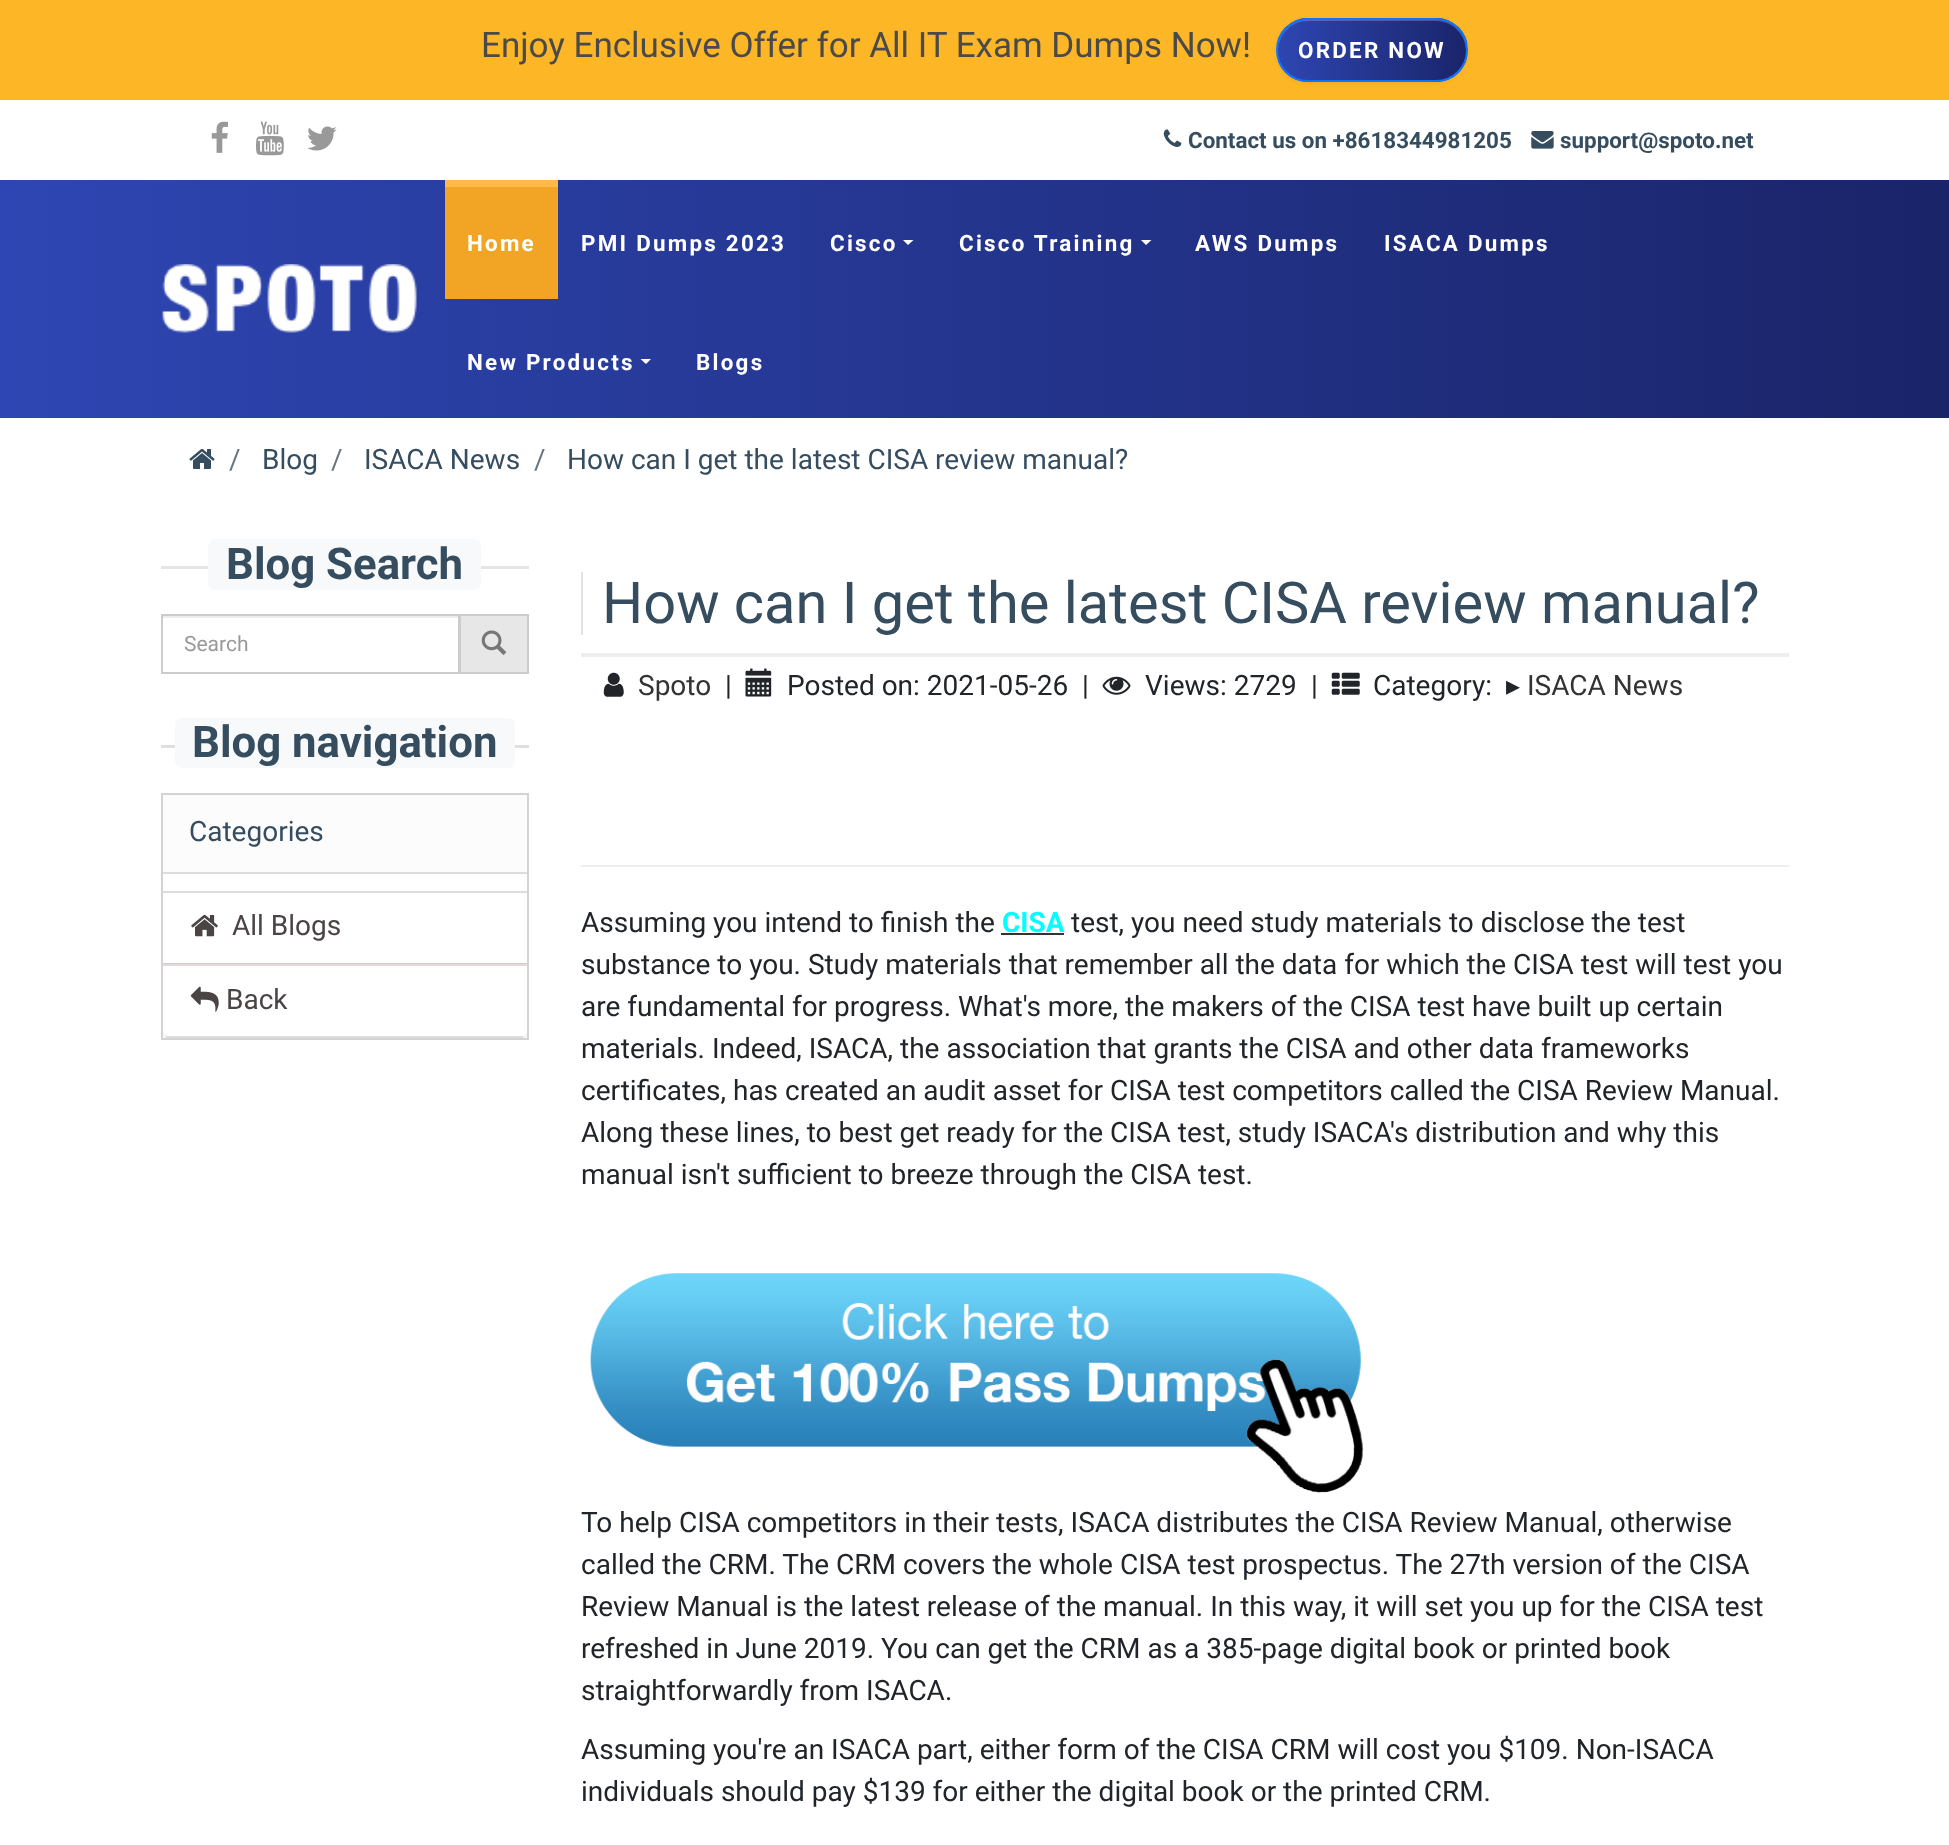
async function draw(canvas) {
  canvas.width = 1949;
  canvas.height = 1845;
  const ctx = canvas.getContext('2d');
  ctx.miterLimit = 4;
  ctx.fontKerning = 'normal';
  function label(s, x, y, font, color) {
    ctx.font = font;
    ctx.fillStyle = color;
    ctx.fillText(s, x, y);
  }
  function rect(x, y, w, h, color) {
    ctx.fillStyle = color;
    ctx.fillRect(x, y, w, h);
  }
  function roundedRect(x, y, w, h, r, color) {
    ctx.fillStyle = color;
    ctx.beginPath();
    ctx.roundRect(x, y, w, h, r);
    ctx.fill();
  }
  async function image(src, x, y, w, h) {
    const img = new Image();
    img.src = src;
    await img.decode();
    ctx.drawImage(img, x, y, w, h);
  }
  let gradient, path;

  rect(0, 0, 1949, 1845, '#fff');
  rect(0, 0, 1949, 100, '#fdb726');
  label('Enjoy Enclusive Offer for All IT Exam Dumps Now!', 481, 57, '35px Roboto', '#4a4a4a');
  ctx.fillStyle = '#0000000d';
  ctx.filter = 'blur(2px)';
  ctx.beginPath();
  ctx.roundRect(1276, 19, 192, 65, 32.5);
  ctx.fill();
  ctx.filter = 'none';
  ctx.save();
  ctx.beginPath();
  ctx.roundRect(1276, 18, 192, 64, 32);
  ctx.clip();
  gradient = ctx.createLinearGradient(1278, 50, 1467, 50);
  gradient.addColorStop(0, '#2e46b3');
  gradient.addColorStop(1, '#1a2469');
  ctx.fillStyle = gradient;
  ctx.fillRect(1278, 18, 189, 64);
  ctx.restore();
  ctx.fillStyle = '#ffffff33';
  path = new Path2D('M1308 21H1436C1453 21 1466 35 1466 52C1466 56 1465 61 1464 64C1466 60 1467 55 1467 50C1467 33 1453 19 1436 19H1309C1292 19 1278 33 1278 50V51C1279 34 1291 21 1308 21Z');
  ctx.fill(path);
  ctx.beginPath();
  ctx.roundRect(1277, 19, 190, 62, 31);
  ctx.strokeStyle = '#0c74ff';
  ctx.lineWidth = 2;
  ctx.stroke();
  ctx.letterSpacing = '2.25px';
  label('ORDER NOW', 1298, 58, 'bold 22.4px Roboto', '#fff');
  await image('assets/img1.png', 211, 121, 17, 32);
  await image('assets/img2.png', 256, 121, 28, 35);
  await image('assets/img3.png', 307, 126, 30, 25);
  await image('assets/img4.png', 1163, 129, 19, 18);
  ctx.letterSpacing = '0px';
  label('Contact us on +8618344981205', 1188, 148, 'bold 22.4px Roboto', '#354d5f');
  await image('assets/img5.png', 1531, 131, 23, 18);
  label('support@spoto.net', 1560, 148, 'bold 22.4px Roboto', '#354d5f');
  gradient = ctx.createLinearGradient(0, 299, 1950, 299);
  gradient.addColorStop(0, '#2e46b3');
  gradient.addColorStop(1, '#1a2469');
  ctx.fillStyle = gradient;
  ctx.fillRect(0, 180, 1949, 238);
  await image('assets/img6.png', 162, 264, 255, 69);
  rect(445, 187, 113, 112, '#f2a525');
  rect(445, 180, 113, 7, '#ffb84a');
  ctx.letterSpacing = '2.25px';
  label('Home', 467, 251, 'bold 22.4px Roboto', '#fff');
  label('PMI Dumps 2023', 581, 251, 'bold 22.4px Roboto', '#fff');
  label('Cisco', 830, 251, 'bold 22.4px Roboto', '#fff');
  path = new Path2D('M903 240H913.5L908 245Z');
  ctx.fill(path);
  label('Cisco Training', 959, 251, 'bold 22.4px Roboto', '#fff');
  path = new Path2D('M1141 240H1151.5L1146 245Z');
  ctx.fill(path);
  label('AWS Dumps', 1195, 251, 'bold 22.4px Roboto', '#fff');
  label('ISACA Dumps', 1384, 251, 'bold 22.4px Roboto', '#fff');
  label('New Products', 467, 370, 'bold 22.4px Roboto', '#fff');
  path = new Path2D('M640.5 359H651L646 364Z');
  ctx.fill(path);
  label('Blogs', 696, 370, 'bold 22.4px Roboto', '#fff');
  await image('assets/img7.png', 189, 449, 26, 20);
  ctx.letterSpacing = '0px';
  label('/', 229, 469, '28px Roboto', '#6c757d');
  label('Blog', 262, 469, '28px Roboto', '#354d5f');
  label('/', 331, 469, '28px Roboto', '#6c757d');
  label('ISACA News', 364, 469, '28px Roboto', '#354d5f');
  label('/', 534, 469, '28px Roboto', '#6c757d');
  label('How can I get the latest CISA review manual?', 567, 469, '28px Roboto', '#354d5f');
  rect(161, 566, 368, 3, '#e5e5e5');
  roundedRect(208, 539, 273, 51, 7, '#f8f9fa');
  label('Blog Search', 226, 579, 'bold 43.75px Roboto', '#354d5f');
  rect(163, 616, 296, 2, '#ececec');
  ctx.strokeStyle = '#ccc';
  ctx.strokeRect(162, 615, 297, 58);
  label('Search', 184, 651, '21px Roboto', '#999');
  ctx.fillStyle = '#e7e7e7';
  ctx.beginPath();
  ctx.rect(460, 615, 68, 58);
  ctx.fill();
  ctx.stroke();
  await image('assets/img8.png', 481, 630, 26, 25);
  rect(161, 745, 368, 3, '#dfdfdf');
  roundedRect(175, 718, 340, 50, 7, '#f8f9fa');
  label('Blog navigation', 192, 757, 'bold 43.75px Roboto', '#354d5f');
  ctx.strokeStyle = '#d3d3d3';
  ctx.strokeRect(162, 794, 366, 245);
  rect(163, 795, 364, 77, '#fcfcfc');
  rect(163, 872, 364, 2, '#ddd');
  label('Categories', 189, 841, '28px Roboto', '#354d5f');
  ctx.save();
  ctx.beginPath();
  ctx.rect(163, 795, 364, 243);
  ctx.clip();
  ctx.fillStyle = '#00000012';
  ctx.filter = 'blur(2px)';
  ctx.beginPath();
  ctx.roundRect(163, 893, 364, 147, 7);
  ctx.fill();
  ctx.filter = 'none';
  ctx.restore();
  rect(163, 893, 364, 70, '#fff');
  rect(163, 891, 364, 2, '#ddd');
  rect(163, 963, 364, 1, '#e0c5c5');
  await image('assets/img9.png', 191, 915, 27, 22);
  label('All Blogs', 232, 935, '28px Roboto', '#4b4444');
  ctx.fillStyle = '#fff';
  path = new Path2D('M163 966H527V1031C527 1034 524 1036 520 1036H170C166 1036 163 1034 163 1031Z');
  ctx.fill(path);
  rect(163, 964, 364, 2, '#ddd');
  rect(166, 1036, 357, 2, '#ddd');
  await image('assets/img10.png', 190, 986, 29, 26);
  label('Back', 226, 1009, '28px Roboto', '#4b4444');
  rect(581, 572, 2, 63, '#e7e1e1');
  label('How can I get the latest CISA review manual?', 602, 623, '57.75px Roboto', '#354d5f');
  rect(581, 653, 1208, 4, '#eee');
  await image('assets/img11.png', 603, 672, 21, 25);
  label('Spoto', 638, 695, '28px Roboto', '#333');
  label('|', 725, 695, '28px Roboto', '#212529');
  await image('assets/img12.png', 745, 668, 27, 29);
  label('Posted on: 2021-05-26', 787, 695, '28px Roboto', '#212529');
  label('|', 1082, 695, '28px Roboto', '#212529');
  await image('assets/img13.png', 1102, 676, 29, 19);
  label('Views: 2729', 1145, 695, '28px Roboto', '#212529');
  label('|', 1311, 695, '28px Roboto', '#212529');
  await image('assets/img14.png', 1331, 672, 29, 23);
  label('Category:', 1373, 695, '28px Roboto', '#212529');
  label('▸', 1506, 695, '28px DejaVu Sans', '#212529');
  label('ISACA News', 1527, 695, '28px Roboto', '#333');
  rect(581, 865, 1208, 2, '#eee');
  label('Assuming you intend to finish the', 581, 932, '28px Roboto', '#212529');
  label('CISA', 1002, 932, 'bold 28px Roboto', '#0ff');
  rect(1001, 933, 63, 2, '#333');
  label('test, you need study materials to disclose the test', 1071, 932, '28px Roboto', '#212529');
  label('substance to you. Study materials that remember all the data for which the CISA test will test you', 581, 974, '28px Roboto', '#212529');
  label('are fundamental for progress. What\'s more, the makers of the CISA test have built up certain', 581, 1016, '28px Roboto', '#212529');
  label('materials. Indeed, ISACA, the association that grants the CISA and other data frameworks', 581, 1058, '28px Roboto', '#212529');
  label('certificates, has created an audit asset for CISA test competitors called the CISA Review Manual.', 581, 1100, '28px Roboto', '#212529');
  label('Along these lines, to best get ready for the CISA test, study ISACA\'s distribution and why this', 581, 1142, '28px Roboto', '#212529');
  label('manual isn\'t sufficient to breeze through the CISA test.', 581, 1184, '28px Roboto', '#212529');
  await image('assets/img15.png', 590, 1273, 774, 220);
  label('To help CISA competitors in their tests, ISACA distributes the CISA Review Manual, otherwise', 581, 1532, '28px Roboto', '#212529');
  label('called the CRM. The CRM covers the whole CISA test prospectus. The 27th version of the CISA', 581, 1574, '28px Roboto', '#212529');
  label('Review Manual is the latest release of the manual. In this way, it will set you up for the CISA test', 581, 1616, '28px Roboto', '#212529');
  label('refreshed in June 2019. You can get the CRM as a 385-page digital book or printed book', 581, 1658, '28px Roboto', '#212529');
  label('straightforwardly from ISACA.', 581, 1700, '28px Roboto', '#212529');
  label('Assuming you\'re an ISACA part, either form of the CISA CRM will cost you $109. Non-ISACA', 581, 1759, '28px Roboto', '#212529');
  label('individuals should pay $139 for either the digital book or the printed CRM.', 581, 1801, '28px Roboto', '#212529');
}

draw(document.querySelector('canvas'));
